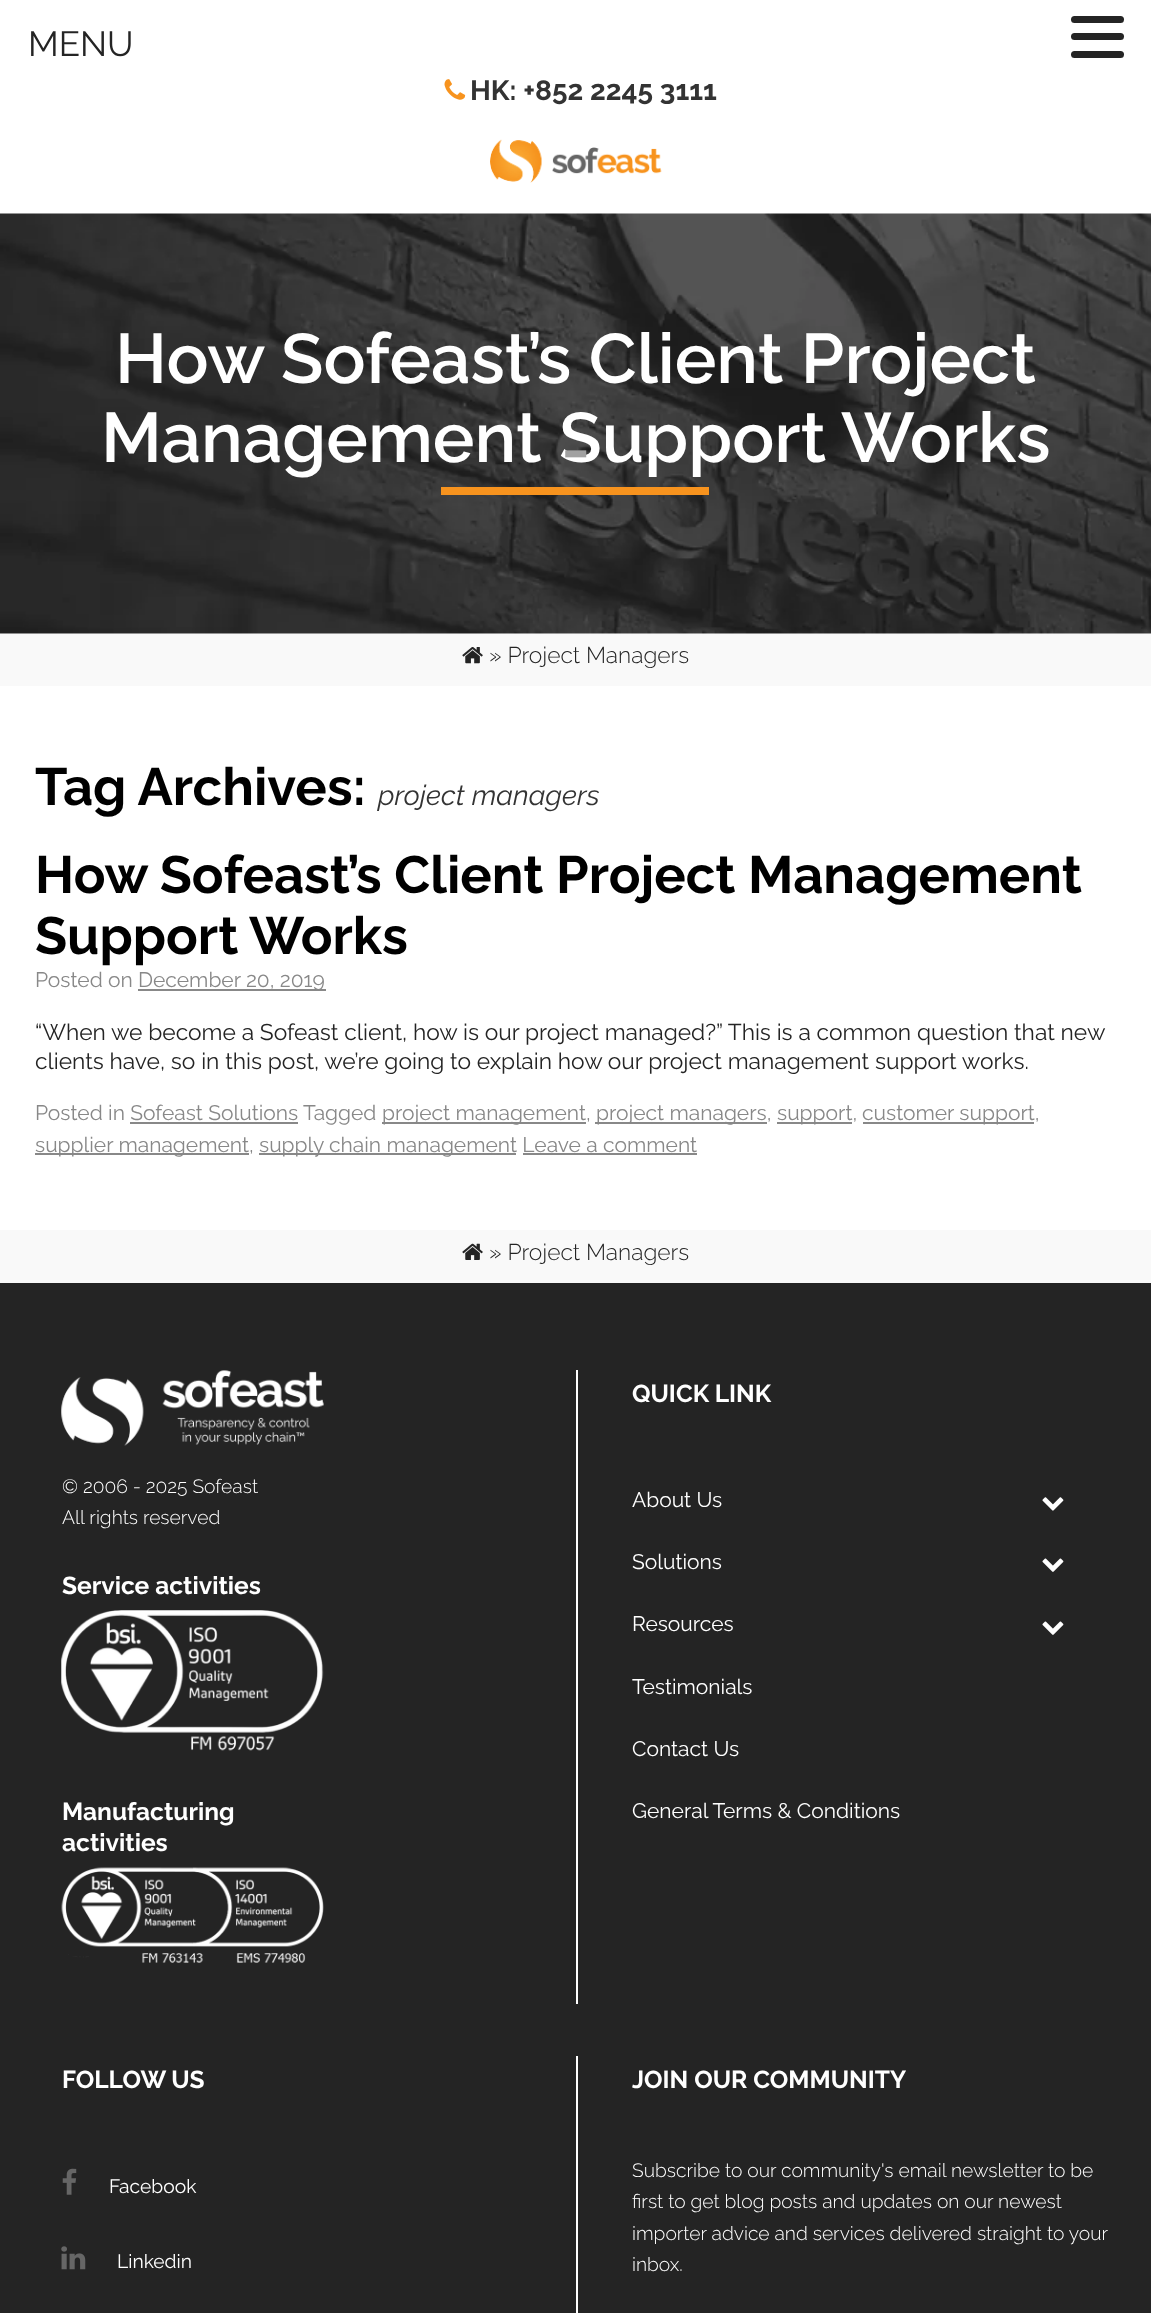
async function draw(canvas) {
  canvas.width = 1151;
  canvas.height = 2313;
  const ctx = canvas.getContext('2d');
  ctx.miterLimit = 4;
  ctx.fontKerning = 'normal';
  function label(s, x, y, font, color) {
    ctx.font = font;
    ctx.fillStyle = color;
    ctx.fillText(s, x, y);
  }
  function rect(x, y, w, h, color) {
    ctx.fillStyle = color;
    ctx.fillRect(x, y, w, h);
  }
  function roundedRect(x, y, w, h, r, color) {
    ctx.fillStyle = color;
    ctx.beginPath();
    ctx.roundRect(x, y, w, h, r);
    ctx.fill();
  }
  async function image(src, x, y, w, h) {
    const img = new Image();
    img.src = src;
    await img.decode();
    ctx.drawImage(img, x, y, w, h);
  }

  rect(0, 0, 1151, 2313, '#fff');
  label('MENU', 28, 56, '35px Raleway', '#242424');
  roundedRect(1071, 16, 53, 7, 3.5, '#242424');
  roundedRect(1071, 33, 53, 7, 3.5, '#242424');
  roundedRect(1071, 51, 53, 7, 3.5, '#242424');
  await image('assets/img1.png', 444, 79, 22, 21);
  label('HK: +852 2245 3111', 470, 100, 'bold 28px Raleway', '#333');
  await image('assets/img2.png', 490, 139, 172, 44);
  await image('assets/img3.png', 0, 213, 1151, 421);
  label('How Sofeast’s Client Project', 115, 383, '600 70px Raleway', '#fff');
  label('Management Support Works', 101, 462, '600 70px Raleway', '#fff');
  rect(441, 487, 268, 8, '#f7931e');
  label('-', 561, 473, '600 70px Raleway', '#a1a1a1');
  rect(0, 634, 1151, 52, '#f9f9f9');
  await image('assets/img4.png', 462, 647, 21, 17);
  label('» Project Managers', 489, 663, '300 22.75px Raleway', '#242424');
  label('Tag Archives:', 35, 805, 'bold 52.5px Raleway', '#000');
  label('project managers', 378, 805, 'italic 28px Raleway', '#333');
  label('How Sofeast’s Client Project Management', 35, 893, 'bold 52.5px Raleway', '#000');
  label('Support Works', 35, 954, 'bold 52.5px Raleway', '#000');
  label('Posted on', 35, 987, '21px Raleway', '#888');
  rect(138, 989, 188, 2, '#888');
  label('December 20, 2019', 138, 987, '21px Raleway', '#888');
  label('“When we become a Sofeast client, how is our project managed?” This is a common question that new', 35, 1040, '22.75px Raleway', '#242424');
  label('clients have, so in this post, we’re going to explain how our project management support works.', 35, 1069, '22.75px Raleway', '#242424');
  label('Posted in Sofeast Solutions', 35, 1120, '21px Raleway', '#888');
  rect(130, 1122, 168, 2, '#888');
  label('Tagged', 303, 1120, '21px Raleway', '#888');
  rect(382, 1122, 204, 2, '#888');
  label('project management,', 382, 1120, '21px Raleway', '#888');
  rect(595, 1122, 172, 2, '#888');
  label('project managers,', 596, 1120, '21px Raleway', '#888');
  rect(777, 1122, 75, 2, '#888');
  label('support,', 777, 1120, '21px Raleway', '#888');
  rect(863, 1122, 171, 2, '#888');
  label('customer support,', 862, 1120, '21px Raleway', '#888');
  rect(35, 1153, 214, 2, '#888');
  label('supplier management,', 35, 1152, '21px Raleway', '#888');
  rect(259, 1153, 257, 2, '#888');
  label('supply chain management Leave a comment', 259, 1152, '21px Raleway', '#888');
  rect(523, 1153, 174, 2, '#888');
  rect(0, 1230, 1151, 53, '#f9f9f9');
  await image('assets/img5.png', 462, 1243, 21, 17);
  label('» Project Managers', 489, 1260, '300 22.75px Raleway', '#242424');
  rect(0, 1283, 1151, 1030, '#242424');
  rect(576, 1370, 2, 634, '#fff');
  await image('assets/img6.png', 61, 1370, 263, 76);
  label('© 2006 - 2025 Sofeast', 62, 1493, '300 19.25px Raleway', '#fff');
  label('All rights reserved', 62, 1524, '300 19.25px Raleway', '#fff');
  label('Service activities', 62, 1594, 'bold 24.5px Raleway', '#fff');
  await image('assets/img7.png', 61, 1610, 263, 141);
  label('Manufacturing', 62, 1820, 'bold 24.5px Raleway', '#fff');
  label('activities', 62, 1851, 'bold 24.5px Raleway', '#fff');
  await image('assets/img8.png', 61, 1867, 263, 96);
  label('QUICK LINK', 632, 1402, 'bold 24.5px Raleway', '#fff');
  label('About Us', 632, 1507, '21px Raleway', '#fff');
  await image('assets/img9.png', 1042, 1497, 22, 14);
  label('Solutions', 632, 1569, '21px Raleway', '#fff');
  await image('assets/img10.png', 1042, 1558, 22, 14);
  label('Resources', 632, 1631, '21px Raleway', '#fff');
  await image('assets/img10.png', 1042, 1621, 22, 14);
  label('Testimonials', 632, 1694, '21px Raleway', '#fff');
  label('Contact Us', 632, 1756, '21px Raleway', '#fff');
  label('General Terms & Conditions', 632, 1818, '21px Raleway', '#fff');
  rect(576, 2056, 2, 257, '#fff');
  label('FOLLOW US', 62, 2088, 'bold 24.5px Raleway', '#fff');
  await image('assets/img11.png', 62, 2168, 15, 27);
  label('Facebook', 109, 2193, '19.25px Raleway', '#fff');
  await image('assets/img12.png', 61, 2246, 25, 24);
  label('Linkedin', 117, 2268, '19.25px Raleway', '#fff');
  label('JOIN OUR COMMUNITY', 632, 2088, 'bold 24.5px Raleway', '#fff');
  label('Subscribe to our community\'s email newsletter to be', 632, 2177, '300 19.25px Raleway', '#fff');
  label('first to get blog posts and updates on our newest', 632, 2208, '300 19.25px Raleway', '#fff');
  label('importer advice and services delivered straight to your', 632, 2240, '300 19.25px Raleway', '#fff');
  label('inbox.', 632, 2271, '300 19.25px Raleway', '#fff');
}

draw(document.querySelector('canvas'));
